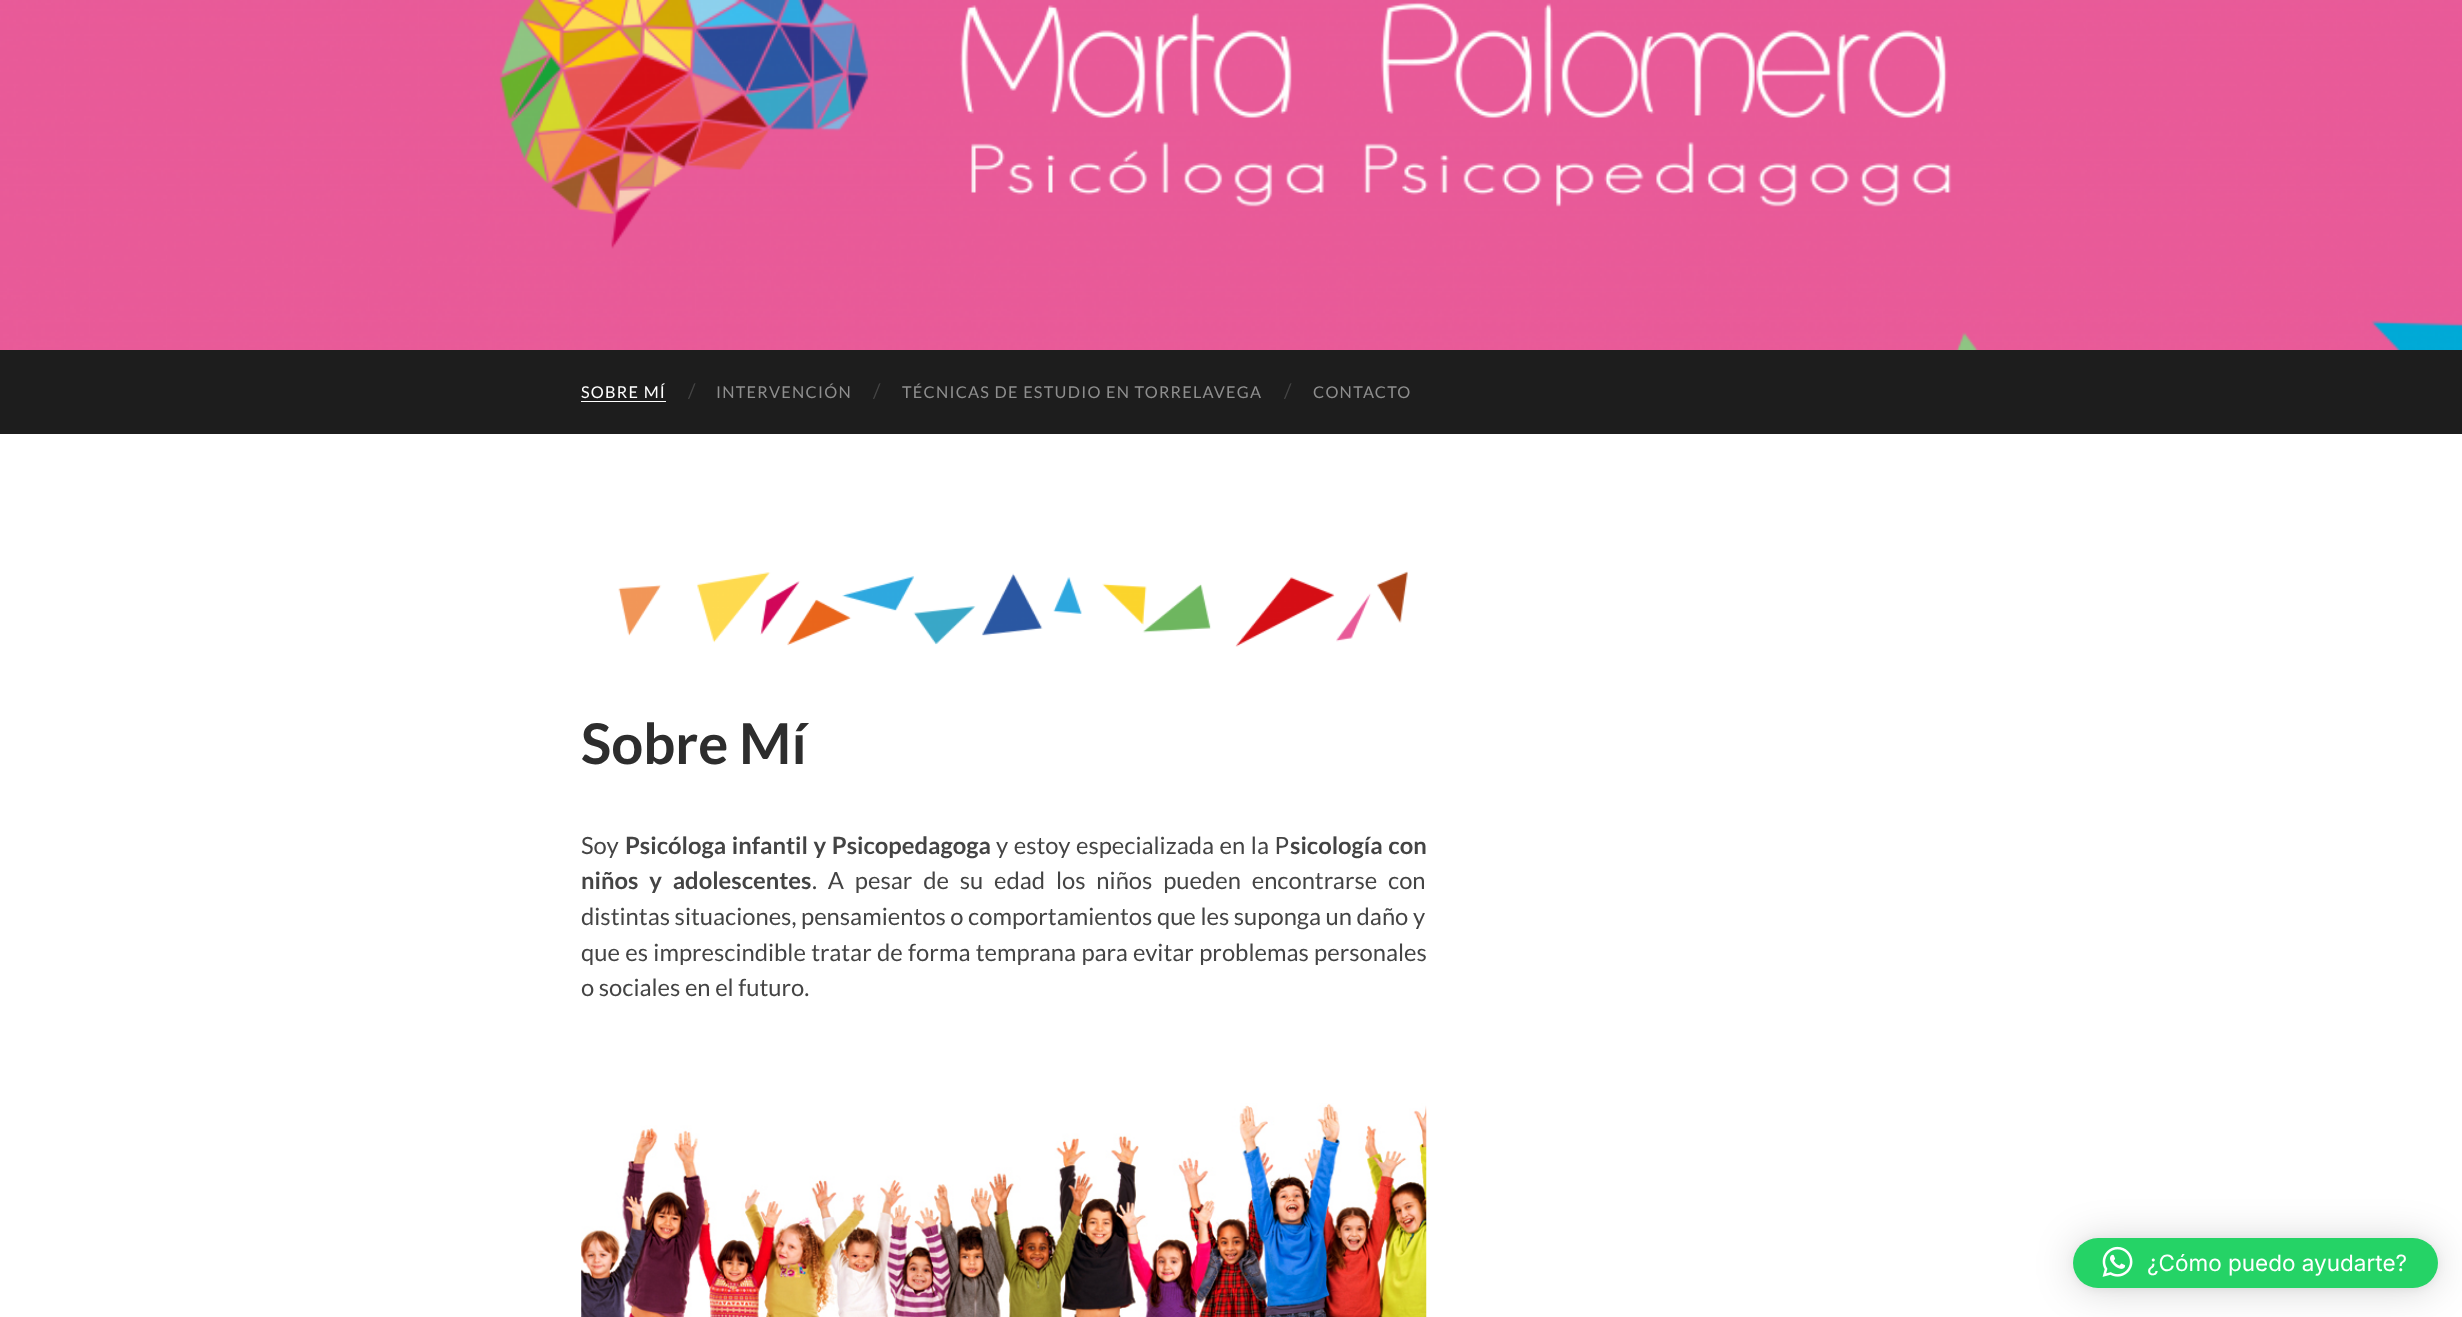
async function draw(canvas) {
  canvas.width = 2462;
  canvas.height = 1317;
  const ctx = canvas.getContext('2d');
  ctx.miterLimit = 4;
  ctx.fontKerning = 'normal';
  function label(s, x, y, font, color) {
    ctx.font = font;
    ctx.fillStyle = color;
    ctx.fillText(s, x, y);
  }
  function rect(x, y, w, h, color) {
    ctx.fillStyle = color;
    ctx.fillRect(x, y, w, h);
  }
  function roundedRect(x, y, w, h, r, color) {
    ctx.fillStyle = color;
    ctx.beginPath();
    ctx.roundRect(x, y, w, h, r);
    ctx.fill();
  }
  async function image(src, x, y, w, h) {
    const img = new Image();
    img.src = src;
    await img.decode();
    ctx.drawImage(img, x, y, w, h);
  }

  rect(0, 0, 2462, 1317, '#fff');
  await image('assets/img1.png', 0, 0, 2462, 350);
  rect(0, 350, 2462, 84, '#1d1d1d');
  ctx.letterSpacing = '1.25px';
  label('SOBRE MÍ', 581, 398, '16.25px Lato', '#fff');
  rect(581, 401, 85, 1, '#fff');
  ctx.letterSpacing = '0px';
  label('/', 688, 398, '20px Lato', '#444');
  ctx.letterSpacing = '1.25px';
  label('INTERVENCIÓN', 716, 398, '16.25px Lato', '#8e8e8e');
  ctx.letterSpacing = '0px';
  label('/', 873, 398, '20px Lato', '#444');
  ctx.letterSpacing = '1.25px';
  label('TÉCNICAS DE ESTUDIO EN TORRELAVEGA', 902, 398, '16.25px Lato', '#8e8e8e');
  ctx.letterSpacing = '0px';
  label('/', 1284, 398, '20px Lato', '#444');
  ctx.letterSpacing = '1.25px';
  label('CONTACTO', 1313, 398, '16.25px Lato', '#8e8e8e');
  await image('assets/img2.png', 618, 571, 790, 76);
  ctx.letterSpacing = '0px';
  label('Sobre Mí', 581, 764, 'bold 56.25px Lato', '#2d2d2d');
  label('Soy', 581, 854, '23.75px Lato', '#444');
  ctx.wordSpacing = '1px';
  label('Psicóloga infantil y Psicopedagoga', 625, 854, 'bold 23.75px Lato', '#444');
  label('y estoy especializada en la P', 996, 854, '23.75px Lato', '#444');
  label('sicología con', 1290, 854, 'bold 23.75px Lato', '#444');
  ctx.wordSpacing = '6.25px';
  label('niños y adolescentes', 581, 889, 'bold 23.75px Lato', '#444');
  label('. A pesar de su edad los niños pueden encontrarse con', 812, 889, '23.75px Lato', '#444');
  ctx.wordSpacing = '0px';
  label('distintas situaciones, pensamientos o comportamientos que les suponga un daño y', 581, 925, '23.75px Lato', '#444');
  ctx.wordSpacing = '0.75px';
  label('que es imprescindible tratar de forma temprana para evitar problemas personales', 581, 961, '23.75px Lato', '#444');
  ctx.wordSpacing = '0px';
  label('o sociales en el futuro.', 581, 996, '23.75px Lato', '#444');
  await image('assets/img3.png', 581, 1103, 846, 214);
  ctx.fillStyle = '#00000029';
  ctx.filter = 'blur(20px)';
  ctx.beginPath();
  ctx.roundRect(2073, 1240, 365, 50, 25);
  ctx.fill();
  ctx.filter = 'none';
  ctx.fillStyle = '#0000000f';
  ctx.filter = 'blur(4px)';
  ctx.beginPath();
  ctx.roundRect(2073, 1239, 365, 50, 25);
  ctx.fill();
  ctx.filter = 'none';
  roundedRect(2073, 1238, 365, 50, 25, '#25d366');
  await image('assets/img4.png', 2102, 1246, 31, 31);
  label('¿Cómo puedo ayudarte?', 2147, 1271, '22.5px Inter', '#fff');
}

draw(document.querySelector('canvas'));
